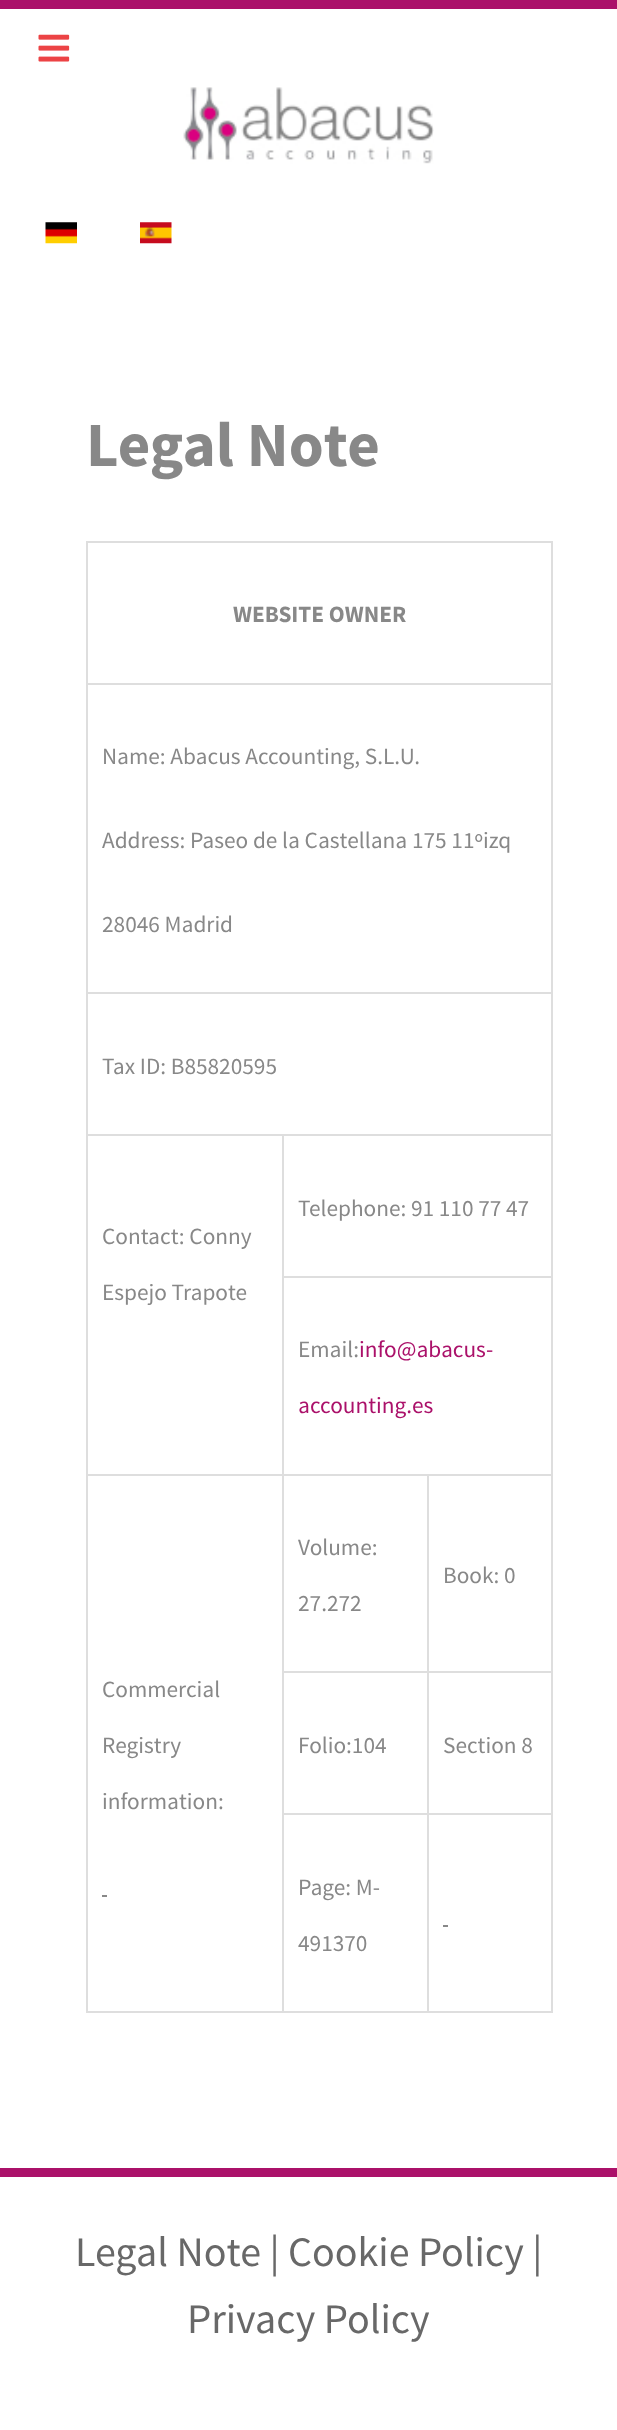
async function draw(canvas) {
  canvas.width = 617;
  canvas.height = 2430;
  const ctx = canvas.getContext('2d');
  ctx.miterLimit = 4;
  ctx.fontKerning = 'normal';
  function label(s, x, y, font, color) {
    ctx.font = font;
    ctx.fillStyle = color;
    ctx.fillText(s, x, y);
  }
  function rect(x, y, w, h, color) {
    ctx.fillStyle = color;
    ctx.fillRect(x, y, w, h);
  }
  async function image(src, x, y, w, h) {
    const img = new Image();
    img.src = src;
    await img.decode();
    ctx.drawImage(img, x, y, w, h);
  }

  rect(0, 0, 617, 2430, '#fff');
  rect(0, 0, 617, 9, '#ab116a');
  await image('assets/img1.png', 183, 87, 251, 77);
  await image('assets/img2.png', 45, 222, 32, 22);
  await image('assets/img3.png', 140, 222, 32, 22);
  await image('assets/img4.png', 38, 34, 32, 28);
  label('Legal Note', 86, 466, 'bold 63px Source Sans Pro', '#888');
  rect(86, 541, 467, 2, '#dedede');
  rect(551, 541, 2, 1472, '#dedede');
  rect(86, 2011, 467, 2, '#dedede');
  rect(86, 541, 2, 1472, '#dedede');
  label('WEBSITE OWNER', 233, 622, 'bold 23.3px Source Sans Pro', '#888');
  rect(86, 683, 467, 2, '#dedede');
  label('Name: Abacus Accounting, S.L.U.', 102, 764, '23.3px Source Sans Pro', '#888');
  label('Address: Paseo de la Castellana 175 11ºizq', 102, 848, '23.3px Source Sans Pro', '#888');
  label('28046 Madrid', 102, 932, '23.3px Source Sans Pro', '#888');
  rect(86, 992, 467, 2, '#dedede');
  label('Tax ID: B85820595', 102, 1074, '23.3px Source Sans Pro', '#888');
  rect(282, 1134, 271, 2, '#dedede');
  rect(282, 1276, 271, 2, '#dedede');
  rect(427, 1474, 126, 2, '#dedede');
  rect(427, 1671, 126, 2, '#dedede');
  rect(427, 1813, 126, 2, '#dedede');
  rect(427, 1813, 2, 200, '#dedede');
  rect(282, 1813, 147, 2, '#dedede');
  rect(427, 1671, 2, 144, '#dedede');
  rect(282, 1671, 147, 2, '#dedede');
  rect(427, 1474, 2, 199, '#dedede');
  rect(282, 1474, 147, 2, '#dedede');
  rect(282, 1813, 2, 200, '#dedede');
  rect(282, 1671, 2, 144, '#dedede');
  rect(282, 1474, 2, 199, '#dedede');
  rect(86, 1474, 198, 2, '#dedede');
  rect(282, 1276, 2, 199, '#dedede');
  rect(282, 1134, 2, 144, '#dedede');
  label('Telephone: 91 110 77 47', 298, 1216, '23.3px Source Sans Pro', '#888');
  rect(86, 1134, 198, 2, '#dedede');
  label('Contact: Conny', 102, 1244, '23.3px Source Sans Pro', '#888');
  label('Espejo Trapote', 102, 1300, '23.3px Source Sans Pro', '#888');
  label('Email:', 298, 1357, '23.3px Source Sans Pro', '#888');
  label('info@abacus-', 359, 1357, '23.3px Source Sans Pro', '#ab116a');
  label('accounting.es', 298, 1413, '23.3px Source Sans Pro', '#ab116a');
  label('Volume:', 298, 1555, '23.3px Source Sans Pro', '#888');
  label('27.272', 298, 1611, '23.3px Source Sans Pro', '#888');
  label('Book: 0', 443, 1583, '23.3px Source Sans Pro', '#888');
  label('Commercial', 102, 1697, '23.3px Source Sans Pro', '#888');
  label('Registry', 102, 1753, '23.3px Source Sans Pro', '#888');
  label('information:', 102, 1809, '23.3px Source Sans Pro', '#888');
  rect(102, 1895, 5, 2, '#888');
  label('Folio:104', 298, 1753, '23.3px Source Sans Pro', '#888');
  label('Section 8', 443, 1753, '23.3px Source Sans Pro', '#888');
  label('Page: M-', 298, 1895, '23.3px Source Sans Pro', '#888');
  label('491370', 298, 1951, '23.3px Source Sans Pro', '#888');
  rect(443, 1925, 5, 2, '#888');
  rect(0, 2168, 617, 9, '#ab116a');
  label('Legal Note | Cookie Policy |', 75, 2266, '42px Source Sans Pro', '#686868');
  label('Privacy Policy', 187, 2333, '42px Source Sans Pro', '#686868');
}

draw(document.querySelector('canvas'));
